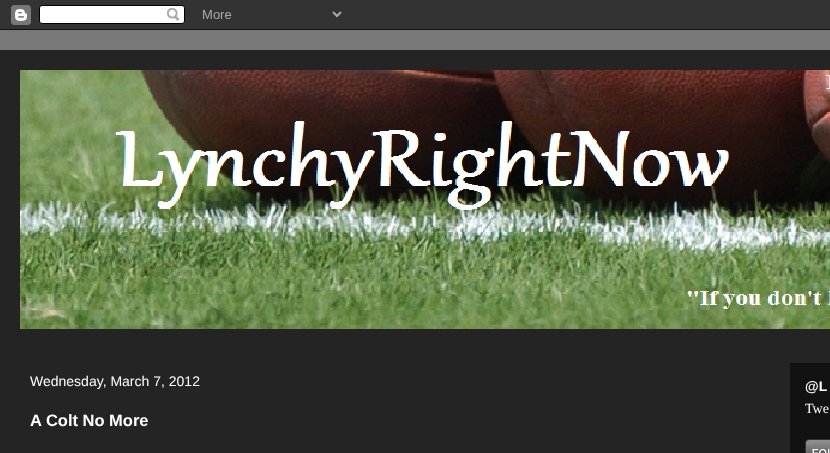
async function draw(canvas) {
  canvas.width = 830;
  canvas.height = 453;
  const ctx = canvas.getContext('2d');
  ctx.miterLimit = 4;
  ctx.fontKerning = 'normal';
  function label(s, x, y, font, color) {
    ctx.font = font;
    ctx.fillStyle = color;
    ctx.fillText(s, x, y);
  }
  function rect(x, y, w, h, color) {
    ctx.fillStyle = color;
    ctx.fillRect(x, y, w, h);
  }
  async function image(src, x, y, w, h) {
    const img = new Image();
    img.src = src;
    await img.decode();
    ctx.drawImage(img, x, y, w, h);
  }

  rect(0, 0, 830, 453, '#787878');
  await image('assets/img1.png', 0, 0, 830, 30);
  rect(0, 50, 830, 403, '#242424');
  await image('assets/img2.png', 20, 70, 810, 259);
  rect(790, 363, 40, 90, '#121212');
  label('Wednesday, March 7, 2012', 30, 386, '14px Liberation Sans', '#fff');
  label('A Colt No More', 30, 426, 'bold 16.5px Liberation Sans', '#fff');
  label('@L', 805, 391, 'bold 14px Liberation Sans', '#fff');
  label('Twe', 805, 413, '14px Liberation Serif', '#fff');
  await image('assets/img3.png', 805, 439, 25, 14);
}

draw(document.querySelector('canvas'));
